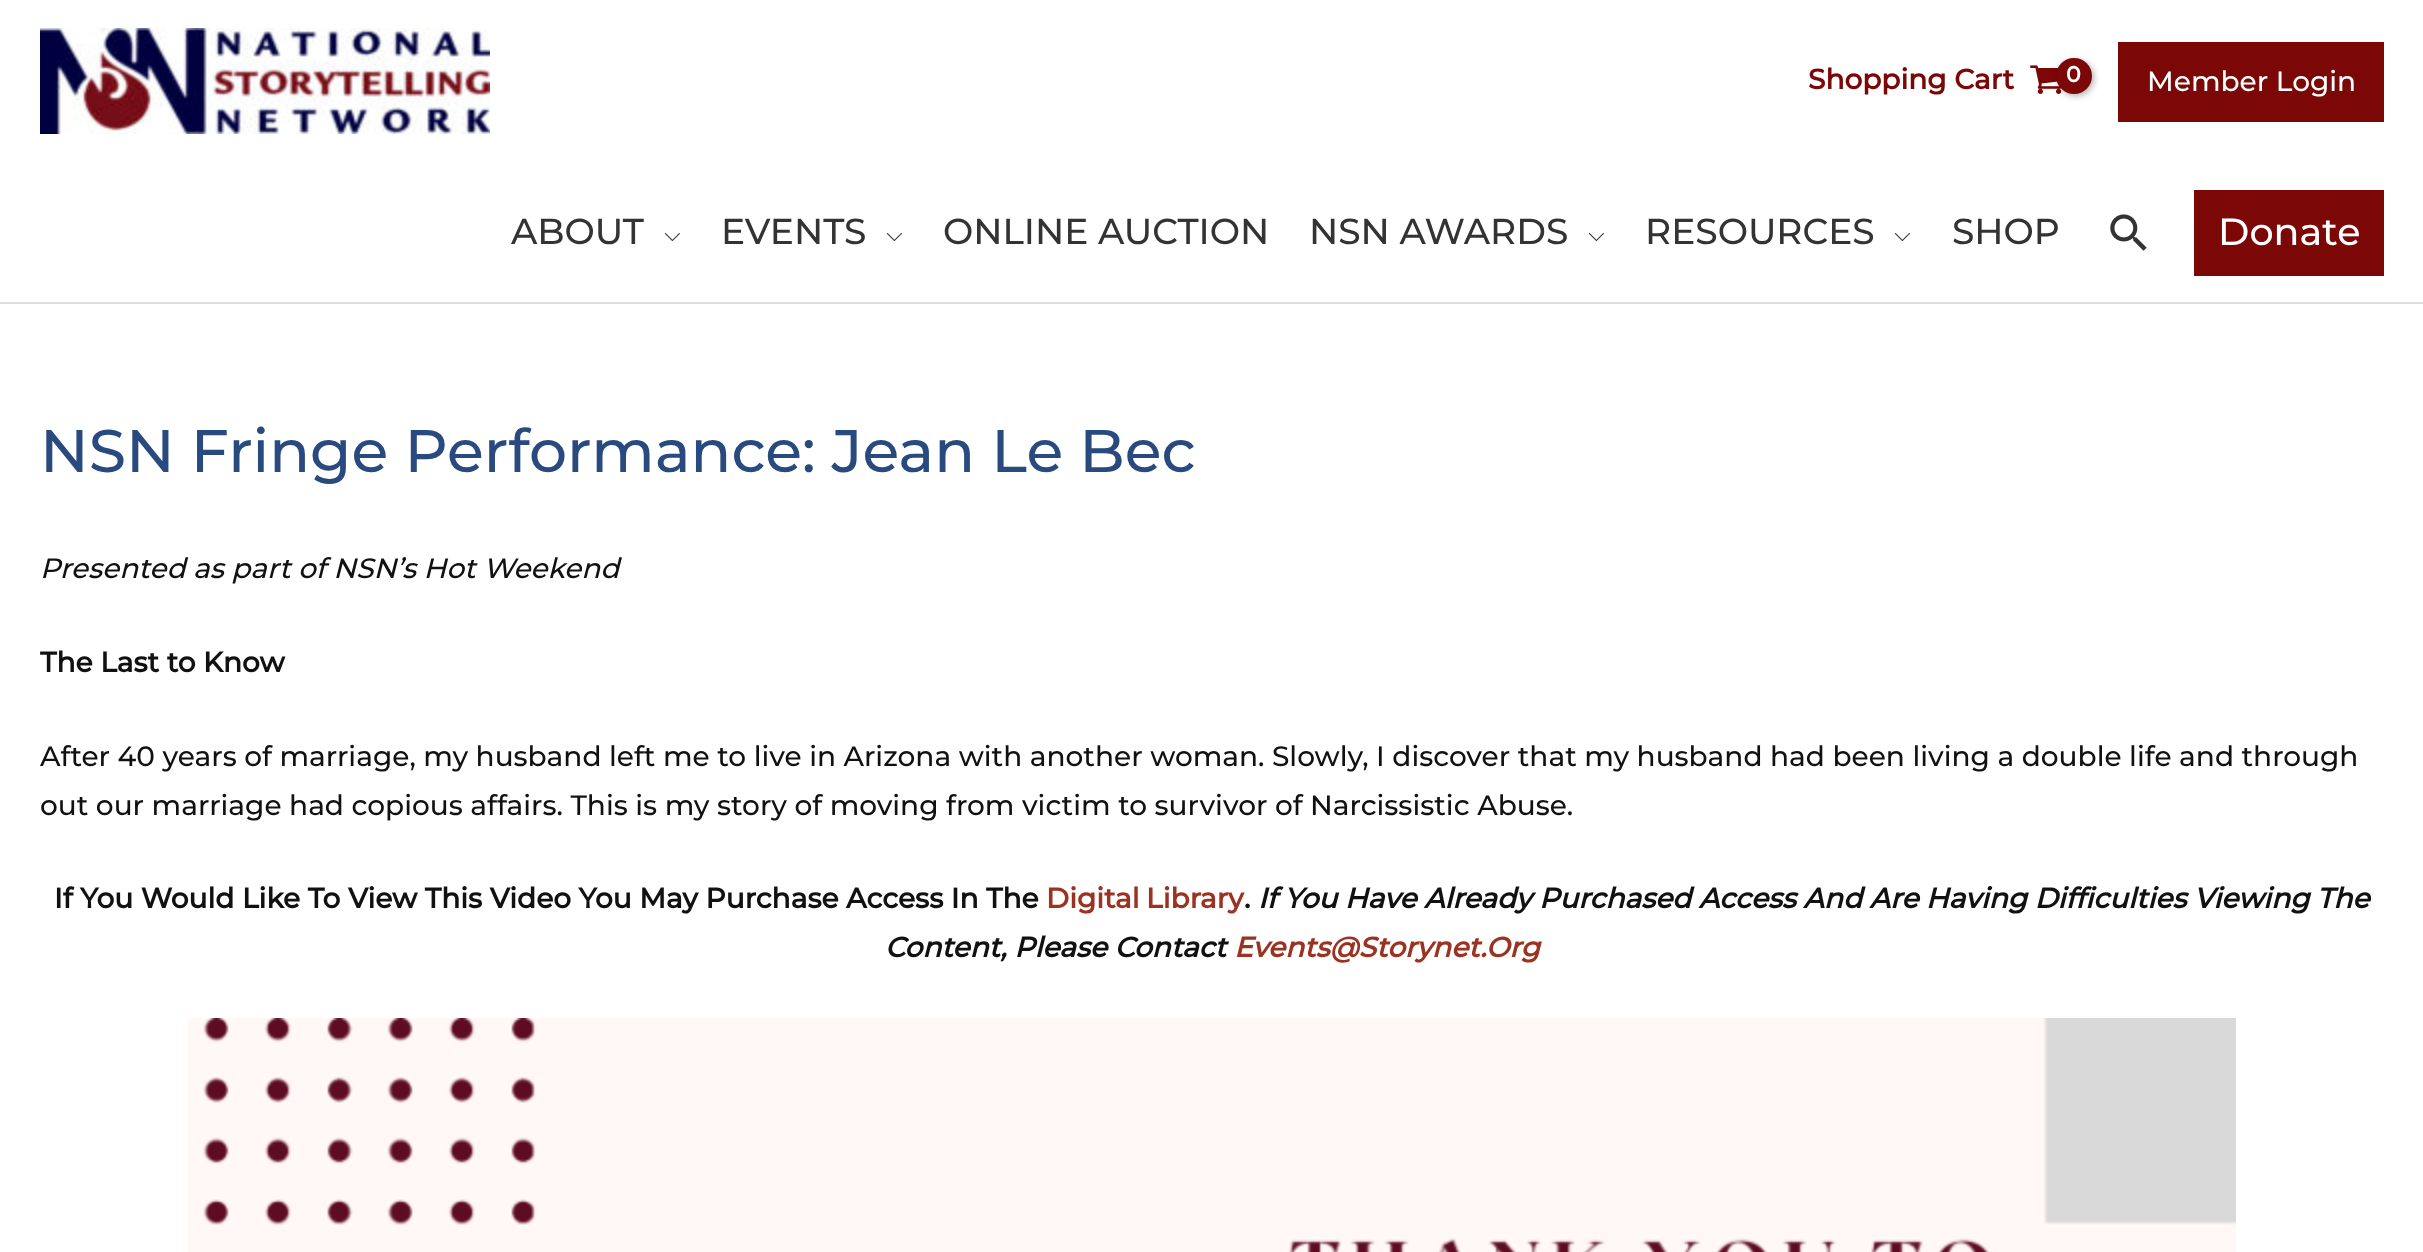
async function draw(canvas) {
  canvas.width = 2423;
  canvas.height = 1252;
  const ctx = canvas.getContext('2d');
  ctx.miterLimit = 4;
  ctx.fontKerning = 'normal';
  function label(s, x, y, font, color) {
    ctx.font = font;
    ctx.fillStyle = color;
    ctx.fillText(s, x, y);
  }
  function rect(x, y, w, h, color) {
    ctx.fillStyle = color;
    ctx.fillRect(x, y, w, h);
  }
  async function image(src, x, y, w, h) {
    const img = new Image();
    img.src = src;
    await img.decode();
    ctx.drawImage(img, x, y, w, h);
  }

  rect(0, 0, 2423, 1252, '#fff');
  await image('assets/img1.png', 40, 28, 450, 106);
  label('Shopping Cart', 1808, 89, 'bold 28px Montserrat', '#7b0707');
  await image('assets/img2.png', 2030, 65, 32, 29);
  ctx.fillStyle = '#0000004d';
  ctx.filter = 'blur(3px)';
  ctx.beginPath();
  ctx.roundRect(2058, 60, 36, 36, 18);
  ctx.fill();
  ctx.filter = 'none';
  ctx.fillStyle = '#7b0707';
  ctx.beginPath();
  ctx.arc(2074, 76, 18, 0, 2 * Math.PI);
  ctx.fill();
  ctx.letterSpacing = '-1px';
  label('0', 2066, 82, 'bold 22px Montserrat', '#fff');
  rect(2118, 42, 266, 80, '#7b0707');
  ctx.letterSpacing = '0px';
  label('Member Login', 2147, 91, '100 28px Montserrat', '#fff');
  rect(0, 302, 2423, 2, '#ddd');
  label('ABOUT', 511, 244, '100 36px Montserrat', '#333');
  await image('assets/img3.png', 664, 233, 16, 8);
  label('EVENTS', 721, 244, '100 36px Montserrat', '#333');
  await image('assets/img3.png', 886, 233, 16, 8);
  label('ONLINE AUCTION', 943, 244, '100 36px Montserrat', '#333');
  label('NSN AWARDS', 1309, 244, '100 36px Montserrat', '#333');
  await image('assets/img3.png', 1588, 233, 16, 8);
  label('RESOURCES', 1645, 244, '100 36px Montserrat', '#333');
  await image('assets/img3.png', 1894, 233, 16, 8);
  label('SHOP', 1952, 244, '100 36px Montserrat', '#333');
  await image('assets/img4.png', 2110, 214, 37, 37);
  rect(2194, 190, 190, 86, '#7b0707');
  label('Donate', 2218, 245, '100 38px Montserrat', '#fff');
  label('NSN Fringe Performance: Jean Le Bec', 40, 472, '100 60px Montserrat', '#294a7e');
  label('Presented as part of NSN’s Hot Weekend', 40, 578, 'italic 100 28px Montserrat', '#111');
  label('The Last to Know', 40, 672, 'bold 28px Montserrat', '#111');
  label('After 40 years of marriage, my husband left me to live in Arizona with another woman. Slowly, I discover that my husband had been living a double life and through', 40, 766, '100 28px Montserrat', '#111');
  label('out our marriage had copious affairs. This is my story of moving from victim to survivor of Narcissistic Abuse.', 40, 815, '100 28px Montserrat', '#111');
  label('If You Would Like To View This Video You May Purchase Access In The', 54, 908, 'bold 28px Montserrat', '#111');
  ctx.wordSpacing = '-1px';
  label('Digital Library', 1046, 908, 'bold 28px Montserrat', '#9c3221');
  ctx.wordSpacing = '0px';
  label('.', 1244, 908, 'bold 28px Montserrat', '#111');
  label('If You Have Already Purchased Access And Are Having Difficulties Viewing The', 1258, 908, 'italic bold 28px Montserrat', '#111');
  label('Content, Please Contact', 885, 957, 'italic bold 28px Montserrat', '#111');
  label('Events@Storynet.Org', 1234, 957, 'italic bold 28px Montserrat', '#9c3221');
  await image('assets/img5.png', 188, 1018, 2048, 234);
}

draw(document.querySelector('canvas'));
